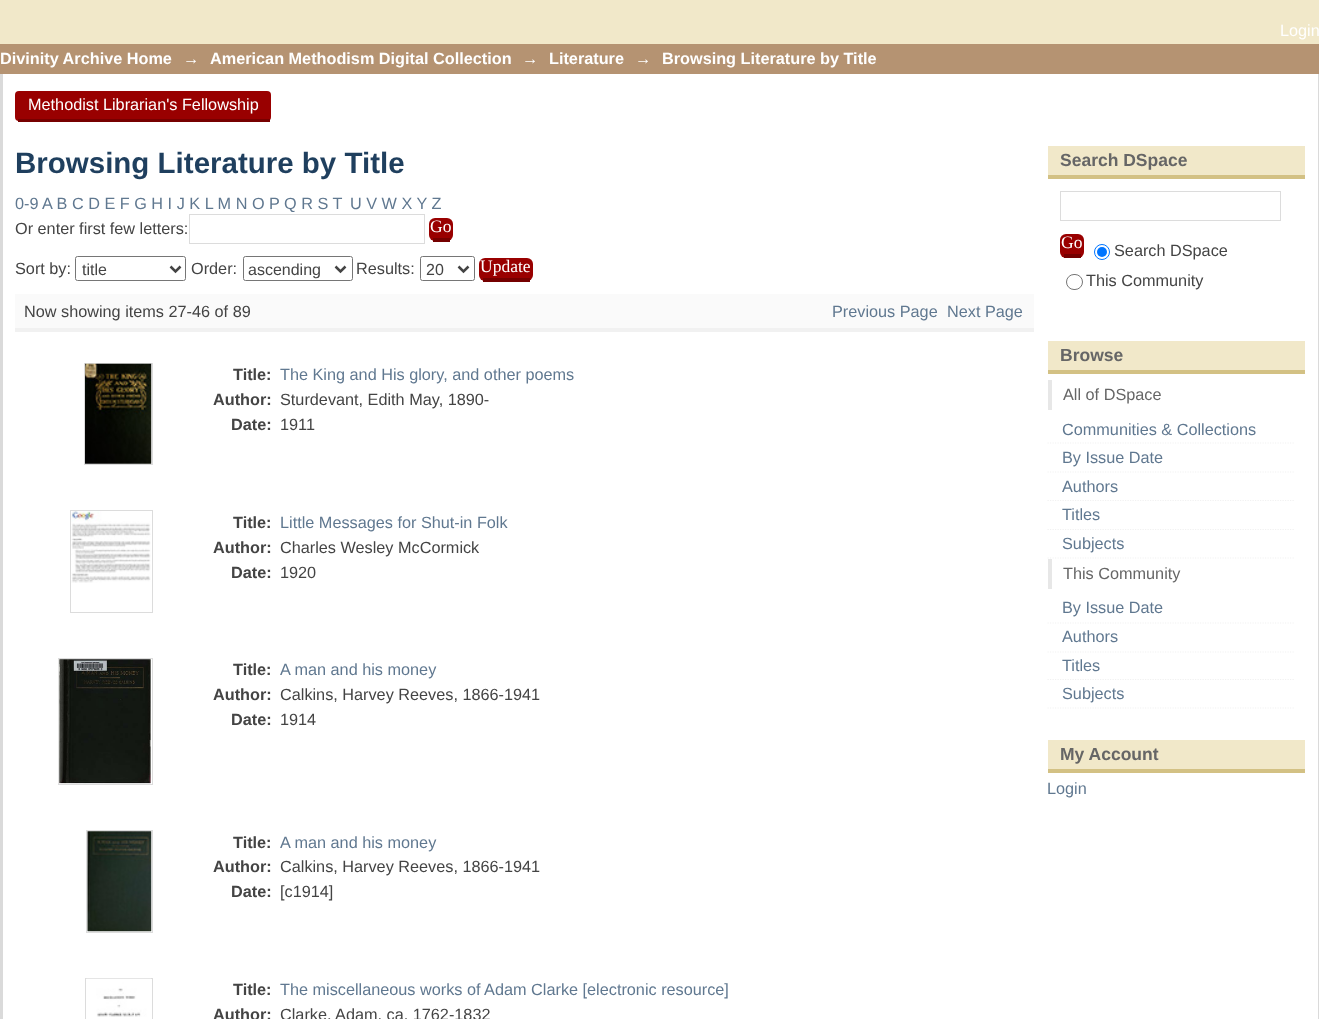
async function draw(canvas) {
  canvas.width = 1319;
  canvas.height = 1019;
  const ctx = canvas.getContext('2d');
  ctx.miterLimit = 4;
  ctx.fontKerning = 'normal';
  function label(s, x, y, font, color) {
    ctx.font = font;
    ctx.fillStyle = color;
    ctx.fillText(s, x, y);
  }
  function rect(x, y, w, h, color) {
    ctx.fillStyle = color;
    ctx.fillRect(x, y, w, h);
  }
  function roundedRect(x, y, w, h, r, color) {
    ctx.fillStyle = color;
    ctx.beginPath();
    ctx.roundRect(x, y, w, h, r);
    ctx.fill();
  }
  async function image(src, x, y, w, h) {
    const img = new Image();
    img.src = src;
    await img.decode();
    ctx.drawImage(img, x, y, w, h);
  }
  let path;

  rect(0, 0, 1319, 1019, '#f1e8c9');
  label('Login', 1280, 36, '16.25px Liberation Sans', '#fff');
  rect(0, 44, 1319, 30, '#b59372');
  label('Divinity Archive Home', 0, 64, 'bold 16.25px Liberation Sans', '#fff');
  label('→', 183, 64, 'bold 16.25px Liberation Sans', '#fff');
  label('American Methodism Digital Collection', 210, 64, 'bold 16.25px Liberation Sans', '#fff');
  label('→', 522, 64, 'bold 16.25px Liberation Sans', '#fff');
  label('Literature', 549, 64, 'bold 16.25px Liberation Sans', '#fff');
  label('→', 635, 64, 'bold 16.25px Liberation Sans', '#fff');
  label('Browsing Literature by Title', 662, 64, 'bold 16.25px Liberation Sans', '#fff');
  rect(3, 74, 1315, 945, '#fff');
  roundedRect(15, 91, 256, 30, 4, '#900');
  rect(18, 119, 252, 3, '#700');
  label('Methodist Librarian\'s Fellowship', 28, 110, '16.25px Liberation Sans', '#fff');
  rect(1318, 74, 1, 945, '#dadada');
  rect(0, 74, 3, 945, '#dadada');
  label('Browsing Literature by Title', 15, 173, 'bold 29.5px Liberation Sans', '#1f3f5e');
  label('0-9 A B C D E F G H I J K L M N O P Q R S T', 15, 209, '16.25px Liberation Sans', '#607890');
  label('U V W X Y Z', 350, 209, '16.25px Liberation Sans', '#607890');
  label('Or enter first few letters:', 15, 234, '16.25px Liberation Sans', '#444');
  ctx.strokeStyle = '#dcdcdc';
  ctx.strokeRect(189.5, 214.5, 235, 29);
  roundedRect(429, 218, 24, 23, 6, '#900');
  rect(433, 238, 17, 4, '#750000');
  label('Go', 430, 232, '17.5px Liberation Serif', '#fff');
  label('Sort by:', 15, 274, '16.25px Liberation Sans', '#444');
  ctx.beginPath();
  ctx.roundRect(75.5, 256.5, 110, 24, 2);
  ctx.strokeStyle = '#767676';
  ctx.stroke();
  path = new Path2D('M170.5 266.5L175.5 271.5L180.5 266.5');
  ctx.strokeStyle = '#444';
  ctx.lineWidth = 2.5;
  ctx.stroke(path);
  label('title', 82, 275, '16px Liberation Sans', '#444');
  label('Order:', 191, 274, '16.25px Liberation Sans', '#444');
  ctx.beginPath();
  ctx.roundRect(243.5, 256.5, 109, 24, 2);
  ctx.strokeStyle = '#767676';
  ctx.lineWidth = 1;
  ctx.stroke();
  path = new Path2D('M335.5 266.5L340.5 271.5L345.5 266.5');
  ctx.strokeStyle = '#444';
  ctx.lineWidth = 2.5;
  ctx.stroke(path);
  label('ascending', 248, 275, '16px Liberation Sans', '#444');
  label('Results:', 356, 274, '16.25px Liberation Sans', '#444');
  ctx.beginPath();
  ctx.roundRect(420.5, 256.5, 54, 24, 2);
  ctx.strokeStyle = '#767676';
  ctx.lineWidth = 1;
  ctx.stroke();
  path = new Path2D('M458.5 266.5L463.5 271.5L468.5 266.5');
  ctx.strokeStyle = '#444';
  ctx.lineWidth = 2.5;
  ctx.stroke(path);
  label('20', 426, 275, '16px Liberation Sans', '#444');
  roundedRect(479, 258, 54, 23, 6, '#900');
  rect(483, 278, 47, 4, '#750000');
  label('Update', 480, 272, '17.5px Liberation Serif', '#fff');
  rect(15, 294, 1019, 34, '#fafafa');
  rect(15, 328, 1019, 4, '#f1f1f1');
  label('Now showing items 27-46 of 89', 24, 317, '16.25px Liberation Sans', '#444');
  label('Previous Page', 832, 317, '16.25px Liberation Sans', '#607890');
  label('Next Page', 947, 317, '16.25px Liberation Sans', '#607890');
  ctx.strokeStyle = '#dcdcdc';
  ctx.lineWidth = 1;
  ctx.strokeRect(84.5, 363.5, 68, 101);
  await image('assets/img1.png', 85, 363, 67, 101);
  label('Title:', 233, 380, 'bold 16.25px Liberation Sans', '#444');
  label('The King and His glory, and other poems', 280, 380, '16.25px Liberation Sans', '#607890');
  label('Author:', 213, 405, 'bold 16.25px Liberation Sans', '#444');
  label('Sturdevant, Edith May, 1890-', 280, 405, '16.25px Liberation Sans', '#444');
  label('Date:', 231, 430, 'bold 16.25px Liberation Sans', '#444');
  label('1911', 280, 430, '16.25px Liberation Sans', '#444');
  ctx.strokeRect(70.5, 510.5, 82, 102);
  await image('assets/img2.png', 71, 511, 80, 72);
  label('Title:', 233, 528, 'bold 16.25px Liberation Sans', '#444');
  label('Little Messages for Shut-in Folk', 280, 528, '16.25px Liberation Sans', '#607890');
  label('Author:', 213, 553, 'bold 16.25px Liberation Sans', '#444');
  label('Charles Wesley McCormick', 280, 553, '16.25px Liberation Sans', '#444');
  label('Date:', 231, 578, 'bold 16.25px Liberation Sans', '#444');
  label('1920', 280, 578, '16.25px Liberation Sans', '#444');
  ctx.strokeRect(58.5, 658.5, 94, 126);
  await image('assets/img3.png', 58, 659, 93, 125);
  label('Title:', 233, 675, 'bold 16.25px Liberation Sans', '#444');
  label('A man and his money', 280, 675, '16.25px Liberation Sans', '#607890');
  label('Author:', 213, 700, 'bold 16.25px Liberation Sans', '#444');
  label('Calkins, Harvey Reeves, 1866-1941', 280, 700, '16.25px Liberation Sans', '#444');
  label('Date:', 231, 725, 'bold 16.25px Liberation Sans', '#444');
  label('1914', 280, 725, '16.25px Liberation Sans', '#444');
  ctx.strokeRect(86.5, 830.5, 66, 102);
  await image('assets/img4.png', 87, 831, 65, 101);
  label('Title:', 233, 848, 'bold 16.25px Liberation Sans', '#444');
  label('A man and his money', 280, 848, '16.25px Liberation Sans', '#607890');
  label('Author:', 213, 872, 'bold 16.25px Liberation Sans', '#444');
  label('Calkins, Harvey Reeves, 1866-1941', 280, 872, '16.25px Liberation Sans', '#444');
  label('Date:', 231, 897, 'bold 16.25px Liberation Sans', '#444');
  label('[c1914]', 280, 897, '16.25px Liberation Sans', '#444');
  ctx.strokeRect(85.5, 978.5, 67, 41);
  await image('assets/img5.png', 86, 978, 65, 39);
  label('Title:', 233, 995, 'bold 16.25px Liberation Sans', '#444');
  label('The miscellaneous works of Adam Clarke [electronic resource]', 280, 995, '16.25px Liberation Sans', '#607890');
  label('Author:', 213, 1020, 'bold 16.25px Liberation Sans', '#444');
  label('Clarke, Adam, ca. 1762-1832', 280, 1020, '16.25px Liberation Sans', '#444');
  rect(1048, 146, 257, 29, '#f1e8c9');
  rect(1048, 175, 257, 4, '#d3c184');
  label('Search DSpace', 1060, 166, 'bold 17.5px Liberation Sans', '#666');
  ctx.strokeRect(1060.5, 191.5, 220, 29);
  roundedRect(1060, 234, 24, 24, 6, '#900');
  rect(1064, 254, 17, 4, '#750000');
  label('Go', 1061, 248, '17.5px Liberation Serif', '#fff');
  ctx.beginPath();
  ctx.arc(1102, 252, 7.5, 0, 2 * Math.PI);
  ctx.strokeStyle = '#0075ff';
  ctx.stroke();
  ctx.fillStyle = '#0075ff';
  ctx.beginPath();
  ctx.arc(1102, 252, 5, 0, 2 * Math.PI);
  ctx.fill();
  label('Search DSpace', 1114, 256, '16.25px Liberation Sans', '#444');
  ctx.beginPath();
  ctx.roundRect(1066.5, 274.5, 16, 15, 7.5);
  ctx.strokeStyle = '#767676';
  ctx.stroke();
  label('This Community', 1086, 286, '16.25px Liberation Sans', '#444');
  rect(1048, 341, 257, 29, '#f1e8c9');
  rect(1048, 370, 257, 4, '#d3c184');
  label('Browse', 1060, 361, 'bold 17.5px Liberation Sans', '#666');
  rect(1048, 380, 4, 30, '#e7e7e7');
  label('All of DSpace', 1063, 400, '16.25px Liberation Sans', '#666');
  path = new Path2D('M1047.5 443H1295');
  ctx.strokeStyle = '#f1f1f1';
  ctx.lineWidth = 1.2;
  ctx.setLineDash([1.25, 1.25]);
  ctx.stroke(path);
  label('Communities & Collections', 1062, 435, '16.25px Liberation Sans', '#607890');
  path = new Path2D('M1047.5 472H1295');
  ctx.stroke(path);
  label('By Issue Date', 1062, 463, '16.25px Liberation Sans', '#607890');
  path = new Path2D('M1047.5 500.5H1295');
  ctx.stroke(path);
  label('Authors', 1062, 492, '16.25px Liberation Sans', '#607890');
  path = new Path2D('M1047.5 529.5H1295');
  ctx.stroke(path);
  label('Titles', 1062, 520, '16.25px Liberation Sans', '#607890');
  path = new Path2D('M1047.5 558H1295');
  ctx.stroke(path);
  label('Subjects', 1062, 549, '16.25px Liberation Sans', '#607890');
  rect(1048, 559, 4, 30, '#e7e7e7');
  label('This Community', 1063, 579, '16.25px Liberation Sans', '#666');
  path = new Path2D('M1047.5 623H1295');
  ctx.stroke(path);
  label('By Issue Date', 1062, 613, '16.25px Liberation Sans', '#607890');
  path = new Path2D('M1047.5 652H1295');
  ctx.stroke(path);
  label('Authors', 1062, 642, '16.25px Liberation Sans', '#607890');
  path = new Path2D('M1047.5 679.5H1295');
  ctx.stroke(path);
  label('Titles', 1062, 671, '16.25px Liberation Sans', '#607890');
  path = new Path2D('M1047.5 708H1295');
  ctx.stroke(path);
  label('Subjects', 1062, 699, '16.25px Liberation Sans', '#607890');
  rect(1048, 740, 257, 29, '#f1e8c9');
  rect(1048, 769, 257, 4, '#d3c184');
  label('My Account', 1060, 760, 'bold 17.5px Liberation Sans', '#666');
  label('Login', 1047, 794, '16.25px Liberation Sans', '#607890');
}

draw(document.querySelector('canvas'));
